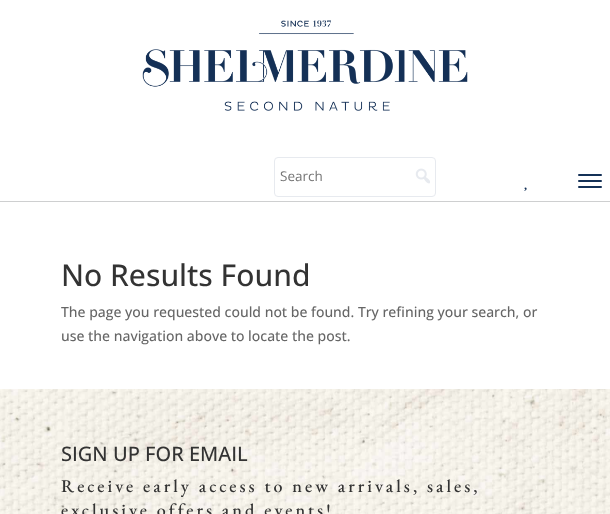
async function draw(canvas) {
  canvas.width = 610;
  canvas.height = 514;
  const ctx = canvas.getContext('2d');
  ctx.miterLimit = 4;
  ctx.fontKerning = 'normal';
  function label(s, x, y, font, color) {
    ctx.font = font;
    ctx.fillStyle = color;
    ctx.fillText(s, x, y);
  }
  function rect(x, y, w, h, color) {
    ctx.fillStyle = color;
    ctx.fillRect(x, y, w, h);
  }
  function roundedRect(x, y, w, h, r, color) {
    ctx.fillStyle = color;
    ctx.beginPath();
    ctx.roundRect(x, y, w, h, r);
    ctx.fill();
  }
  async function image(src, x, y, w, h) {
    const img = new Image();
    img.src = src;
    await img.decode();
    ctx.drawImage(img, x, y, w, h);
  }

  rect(0, 0, 610, 514, '#fff');
  await image('assets/img1.png', 142, 20, 326, 91);
  rect(0, 201, 610, 1, '#cecfd0');
  ctx.beginPath();
  ctx.roundRect(274.5, 157.5, 161, 39, 3.5);
  ctx.strokeStyle = '#e7eaef';
  ctx.stroke();
  label('Search', 280, 181, '13.5px Open Sans', '#757575');
  await image('assets/img2.png', 415, 168, 15, 16);
  roundedRect(578, 174, 24, 2, 1, '#143157');
  roundedRect(578, 180, 24, 2, 1, '#143157');
  roundedRect(578, 186, 24, 2, 1, '#143157');
  await image('assets/img3.png', 524, 187, 3, 4);
  label('No Results Found', 61, 286, '500 30px Open Sans', '#333');
  label('The page you requested could not be found. Try refining your search, or', 61, 317, '500 14px Open Sans', '#666');
  label('use the navigation above to locate the post.', 61, 341, '500 14px Open Sans', '#666');
  await image('assets/img4.png', 0, 389, 610, 125);
  label('SIGN UP FOR EMAIL', 61, 461, '500 20px Open Sans', '#333');
  ctx.letterSpacing = '3px';
  label('Receive early access to new arrivals, sales,', 61, 492, '500 18px EB Garamond', '#333');
  label('exclusive offers and events!', 61, 516, '500 18px EB Garamond', '#333');
}

draw(document.querySelector('canvas'));
